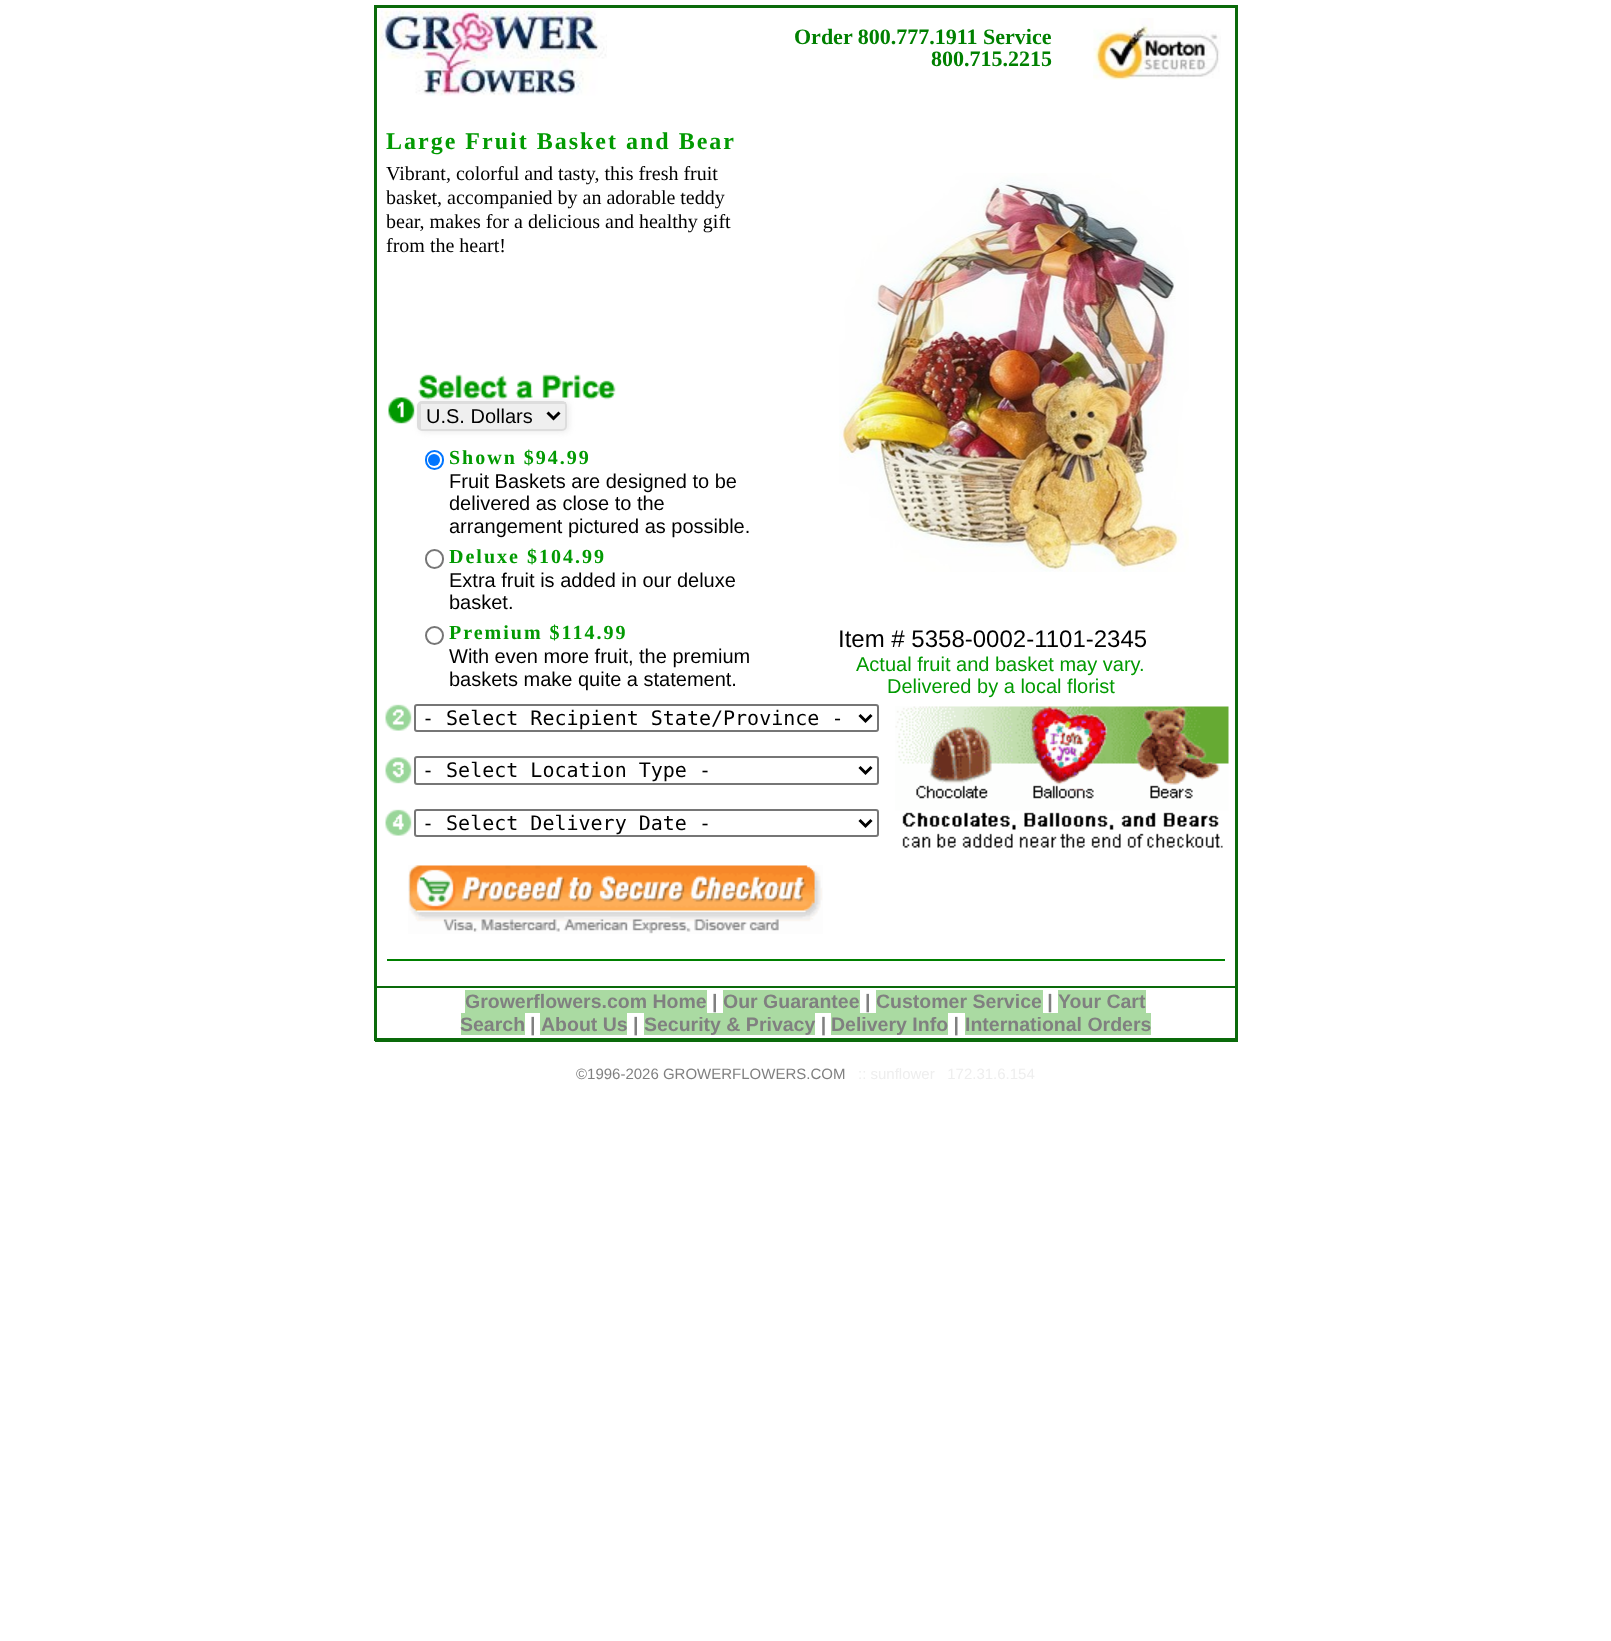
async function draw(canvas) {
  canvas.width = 1611;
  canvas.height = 1641;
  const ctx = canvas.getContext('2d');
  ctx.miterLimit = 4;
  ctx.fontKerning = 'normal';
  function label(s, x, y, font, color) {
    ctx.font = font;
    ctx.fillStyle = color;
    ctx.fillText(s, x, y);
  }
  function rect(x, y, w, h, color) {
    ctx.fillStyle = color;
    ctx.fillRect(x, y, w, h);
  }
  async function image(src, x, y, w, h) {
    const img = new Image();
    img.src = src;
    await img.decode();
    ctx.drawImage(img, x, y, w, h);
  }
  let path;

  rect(0, 0, 1611, 1641, '#fff');
  rect(374, 5, 864, 3, '#0a6a0a');
  rect(375, 986, 863, 2, '#0a6a0a');
  rect(1235, 5, 3, 1036, '#0a6a0a');
  rect(374, 1038, 864, 3, '#0a6a0a');
  rect(374, 5, 3, 1036, '#0a6a0a');
  await image('assets/img1.png', 379, 10, 228, 86);
  label('Order 800.777.1911', 794, 44, 'bold 22px Liberation Serif', '#008000');
  label('Service', 983, 44, 'bold 22px Liberation Serif', '#008000');
  label('800.715.2215', 931, 66, 'bold 22px Liberation Serif', '#008000');
  await image('assets/img2.png', 1093, 18, 128, 62);
  ctx.letterSpacing = '2px';
  label('Large Fruit Basket and Bear', 386, 149, 'bold 24px Liberation Serif', '#029a02');
  ctx.letterSpacing = '0px';
  label('Vibrant, colorful and tasty, this fresh fruit', 386, 180, '20px Liberation Serif', '#000');
  label('basket, accompanied by an adorable teddy', 386, 204, '20px Liberation Serif', '#000');
  label('bear, makes for a delicious and healthy gift', 386, 228, '20px Liberation Serif', '#000');
  label('from the heart!', 386, 252, '20px Liberation Serif', '#000');
  await image('assets/img3.png', 839, 173, 350, 399);
  label('Item # 5358-0002-1101-2345', 838, 647, '24px Liberation Sans', '#000');
  label('Actual fruit and basket may vary.', 856, 671, '20px Liberation Sans', '#029a02');
  label('Delivered by a local florist', 887, 693, '20px Liberation Sans', '#029a02');
  await image('assets/img4.png', 388, 397, 27, 27);
  await image('assets/img5.png', 418, 374, 198, 26);
  ctx.fillStyle = '#ebebeb';
  ctx.filter = 'blur(3px)';
  ctx.beginPath();
  ctx.roundRect(419, 402, 150, 30, 5);
  ctx.fill();
  ctx.filter = 'none';
  ctx.fillStyle = '#efefef';
  path = new Path2D('M422 404H562C564 404 566 404 566 405V426C566 428 564 429 562 429H422C421 429 420 428 420 426V405C420 404 421 404 422 404Z');
  ctx.fill(path);
  ctx.beginPath();
  ctx.roundRect(418, 402, 148, 28, 4);
  ctx.strokeStyle = '#ddd';
  ctx.lineWidth = 2;
  ctx.stroke();
  rect(420, 402, 146, 2, '#ddd');
  rect(419, 404, 2, 25, '#ddd');
  path = new Path2D('M547.5 412.5L553.5 418.5L559.5 412.5');
  ctx.strokeStyle = '#000';
  ctx.lineWidth = 3;
  ctx.stroke(path);
  label('U.S. Dollars', 426, 423, '20px Liberation Sans', '#000');
  ctx.beginPath();
  ctx.roundRect(426, 451, 17, 18, 8.5);
  ctx.strokeStyle = '#0075ff';
  ctx.lineWidth = 2;
  ctx.stroke();
  ctx.fillStyle = '#0075ff';
  ctx.beginPath();
  ctx.arc(434, 460, 6, 0, 2 * Math.PI);
  ctx.fill();
  ctx.letterSpacing = '2px';
  label('Shown $94.99', 449, 464, 'bold 20px Liberation Serif', '#029a02');
  ctx.letterSpacing = '0px';
  label('Fruit Baskets are designed to be', 449, 488, '20px Liberation Sans', '#000');
  label('delivered as close to the', 449, 510, '20px Liberation Sans', '#000');
  label('arrangement pictured as possible.', 449, 533, '20px Liberation Sans', '#000');
  ctx.beginPath();
  ctx.roundRect(426, 550, 17, 18, 8.5);
  ctx.strokeStyle = '#767676';
  ctx.stroke();
  ctx.letterSpacing = '2px';
  label('Deluxe $104.99', 449, 563, 'bold 20px Liberation Serif', '#029a02');
  ctx.letterSpacing = '0px';
  label('Extra fruit is added in our deluxe', 449, 587, '20px Liberation Sans', '#000');
  label('basket.', 449, 609, '20px Liberation Sans', '#000');
  ctx.beginPath();
  ctx.arc(434.5, 635.5, 8.5, 0, 2 * Math.PI);
  ctx.stroke();
  ctx.letterSpacing = '2px';
  label('Premium $114.99', 449, 639, 'bold 20px Liberation Serif', '#029a02');
  ctx.letterSpacing = '0px';
  label('With even more fruit, the premium', 449, 663, '20px Liberation Sans', '#000');
  label('baskets make quite a statement.', 449, 686, '20px Liberation Sans', '#000');
  await image('assets/img6.png', 385, 704, 27, 27);
  ctx.beginPath();
  ctx.roundRect(415, 705, 463, 26, 2);
  ctx.stroke();
  path = new Path2D('M859.5 715L865.5 721L871.5 715');
  ctx.strokeStyle = '#000';
  ctx.lineWidth = 3;
  ctx.stroke(path);
  label('- Select Recipient State/Province -', 422, 725, '20px DejaVu Sans Mono', '#000');
  await image('assets/img7.png', 895, 706, 334, 142);
  await image('assets/img8.png', 385, 757, 27, 27);
  ctx.beginPath();
  ctx.roundRect(415, 757, 463, 27, 2);
  ctx.strokeStyle = '#767676';
  ctx.lineWidth = 2;
  ctx.stroke();
  path = new Path2D('M859.5 767L865.5 773L871.5 767');
  ctx.strokeStyle = '#000';
  ctx.lineWidth = 3;
  ctx.stroke(path);
  label('- Select Location Type -', 422, 777, '20px DejaVu Sans Mono', '#000');
  await image('assets/img9.png', 385, 809, 27, 27);
  ctx.beginPath();
  ctx.roundRect(415, 810, 463, 26, 2);
  ctx.strokeStyle = '#767676';
  ctx.lineWidth = 2;
  ctx.stroke();
  path = new Path2D('M859.5 820L865.5 826L871.5 820');
  ctx.strokeStyle = '#000';
  ctx.lineWidth = 3;
  ctx.stroke(path);
  label('- Select Delivery Date -', 422, 830, '20px DejaVu Sans Mono', '#000');
  await image('assets/img10.png', 408, 865, 415, 69);
  rect(387, 959, 838, 2, '#008000');
  rect(375, 1041, 863, 1, '#0a6a0a');
  rect(465, 990, 242, 23, '#aadaa2');
  label('Growerflowers.com Home |', 465, 1008, 'bold 19.5px Liberation Sans', '#808080');
  rect(723, 990, 137, 23, '#aadaa2');
  label('Our Guarantee |', 723, 1008, 'bold 19.5px Liberation Sans', '#808080');
  rect(876, 990, 167, 23, '#aadaa2');
  label('Customer Service |', 876, 1008, 'bold 19.5px Liberation Sans', '#808080');
  rect(1058, 990, 88, 23, '#aadaa2');
  label('Your Cart', 1058, 1008, 'bold 19.5px Liberation Sans', '#808080');
  rect(461, 1013, 64, 22, '#aadaa2');
  label('Search', 460, 1031, 'bold 19.5px Liberation Sans', '#808080');
  label('|', 530, 1031, 'bold 19.5px Liberation Sans', '#808080');
  rect(540, 1013, 87, 22, '#aadaa2');
  label('About Us |', 541, 1031, 'bold 19.5px Liberation Sans', '#808080');
  rect(644, 1013, 171, 22, '#aadaa2');
  label('Security & Privacy |', 644, 1031, 'bold 19.5px Liberation Sans', '#808080');
  rect(831, 1013, 117, 22, '#aadaa2');
  label('Delivery Info |', 831, 1031, 'bold 19.5px Liberation Sans', '#808080');
  rect(965, 1013, 186, 22, '#aadaa2');
  label('International Orders', 965, 1031, 'bold 19.5px Liberation Sans', '#808080');
  label('©1996-2026 GROWERFLOWERS.COM', 576, 1079, '15px Liberation Sans', '#808080');
  label(':: sunflower   172.31.6.154', 858, 1079, '15px Liberation Sans', '#eee');
}

draw(document.querySelector('canvas'));
